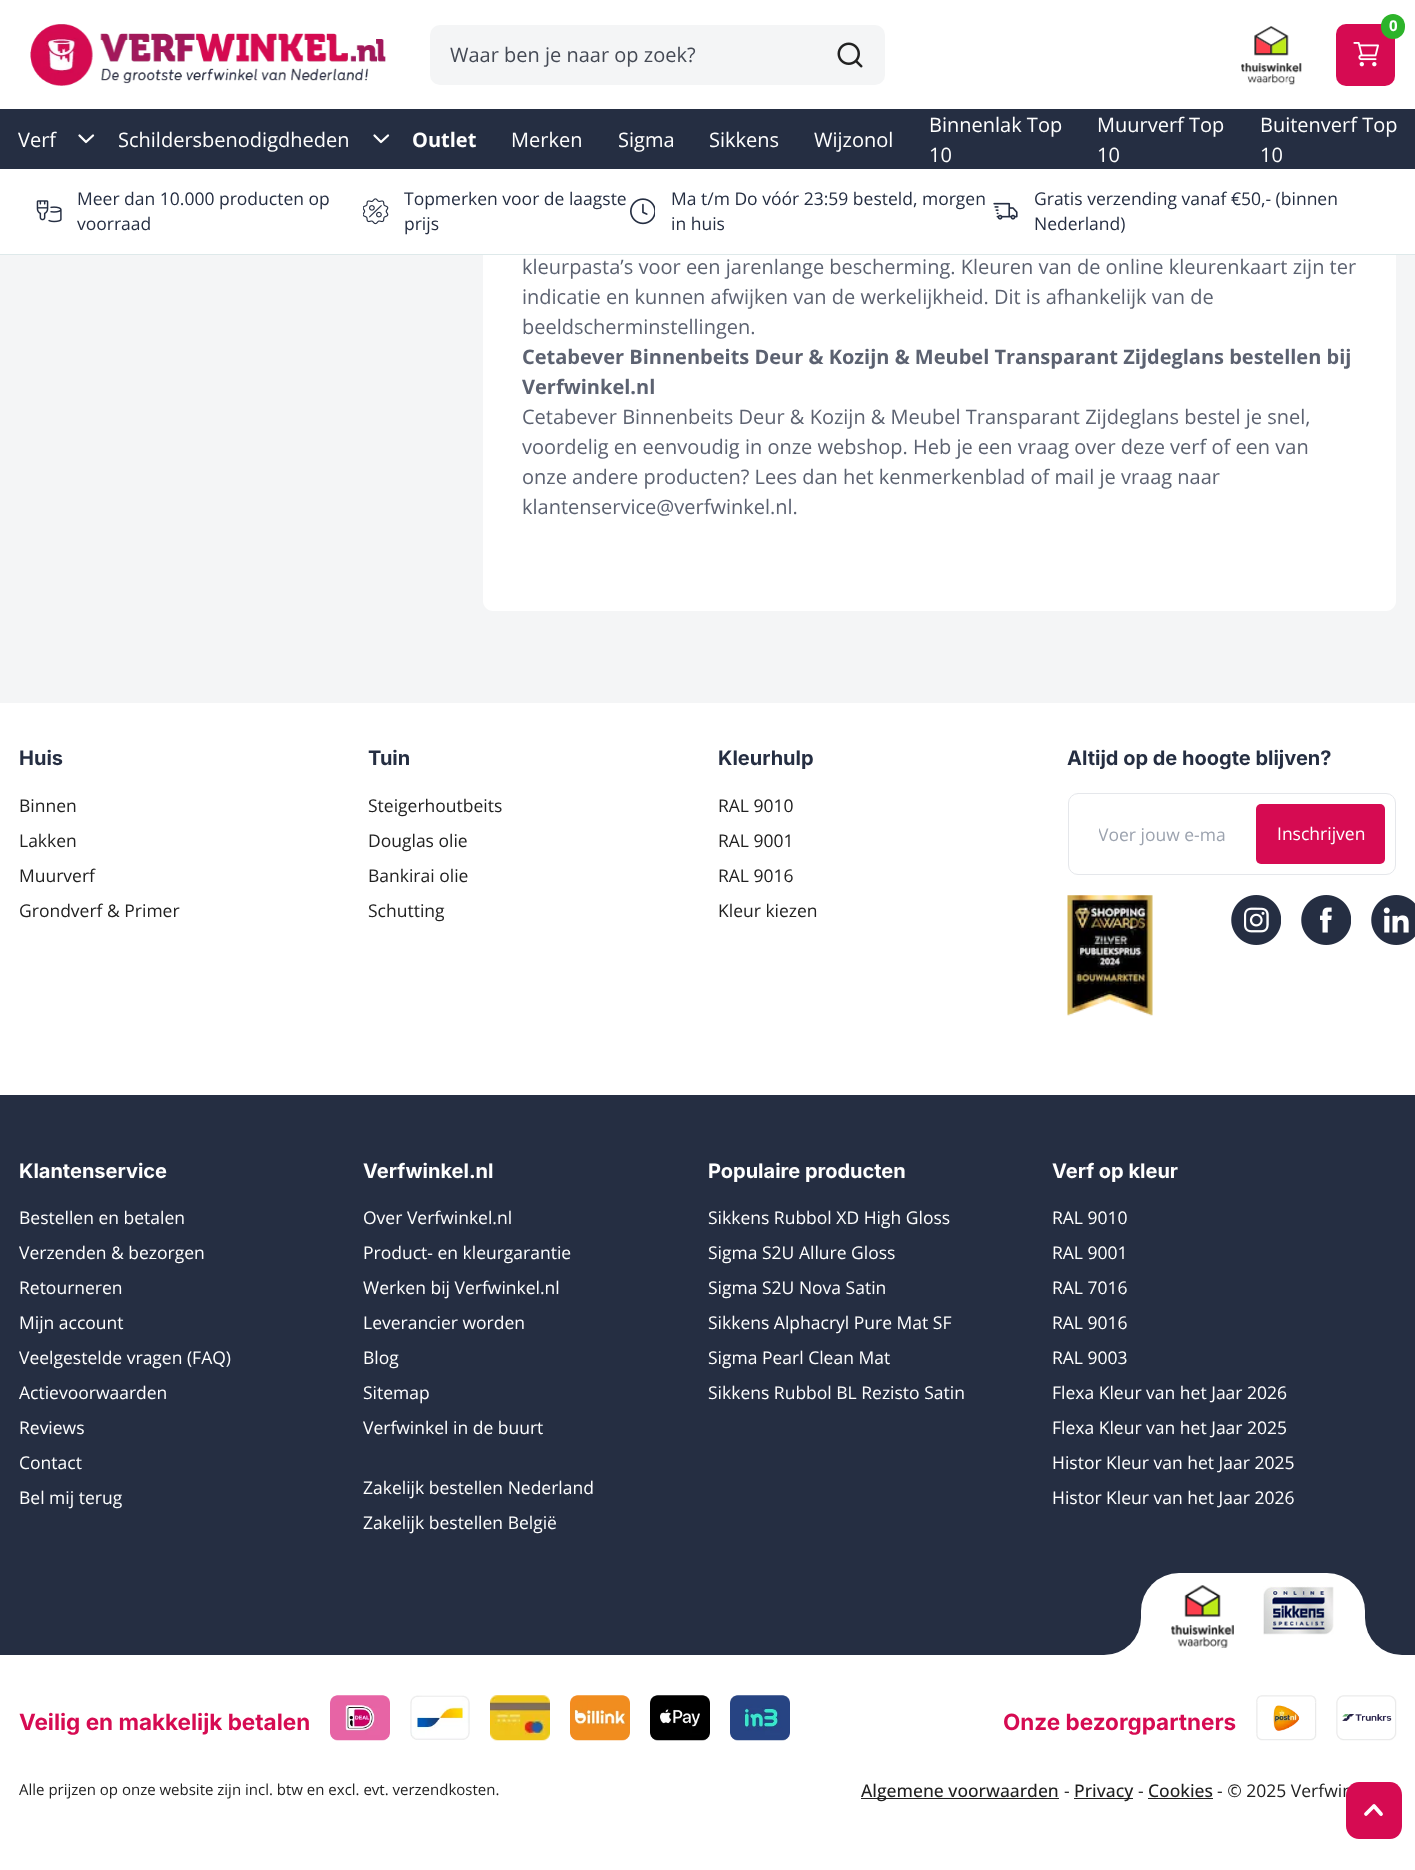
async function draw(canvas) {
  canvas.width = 1415;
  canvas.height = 1870;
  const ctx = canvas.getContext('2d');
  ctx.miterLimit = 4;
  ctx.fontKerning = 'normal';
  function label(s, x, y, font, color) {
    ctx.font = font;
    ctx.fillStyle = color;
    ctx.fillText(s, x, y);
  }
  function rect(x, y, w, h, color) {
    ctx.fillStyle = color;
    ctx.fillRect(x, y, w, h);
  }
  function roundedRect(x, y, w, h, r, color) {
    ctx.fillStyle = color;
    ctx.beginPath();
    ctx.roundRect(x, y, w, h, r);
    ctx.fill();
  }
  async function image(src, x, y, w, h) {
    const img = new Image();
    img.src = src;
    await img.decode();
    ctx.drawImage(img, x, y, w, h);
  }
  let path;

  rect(0, 0, 1415, 1870, '#fff');
  rect(0, 255, 1415, 448, '#f4f5f6');
  ctx.fillStyle = '#fff';
  path = new Path2D('M483-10H1386C1391.5-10 1396-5.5 1396 0V601C1396 606.5 1391.5 611 1386 611H493C487.5 611 483 606.5 483 601Z');
  ctx.fill(path);
  rect(0, 254, 1415, 1, '#dee9ea');
  await image('assets/img1.png', 30, 24, 356, 62);
  roundedRect(430, 25, 455, 60, 10, '#f4f5f6');
  label('Waar ben je naar op zoek?', 450, 62, '20px Open Sans', '#454a55');
  await image('assets/img2.png', 837, 42, 26, 26);
  await image('assets/img3.png', 1241, 26, 61, 59);
  roundedRect(1336, 24, 59, 62, 10, '#d60b52');
  roundedRect(1381, 14, 24, 25, 12, '#2db32a');
  label('0', 1389, 31, 'bold 15px Open Sans', '#fff');
  await image('assets/img4.png', 1353, 42, 26, 25);
  rect(0, 109, 1415, 60, '#252e42');
  label('Verf', 18, 147, '20px Open Sans', '#fff');
  path = new Path2D('M79.5 135.5L86 142L93 135.5');
  ctx.strokeStyle = '#fff';
  ctx.lineWidth = 2.3;
  ctx.lineCap = 'round';
  ctx.lineJoin = 'round';
  ctx.stroke(path);
  label('Schildersbenodigdheden', 118, 147, '20px Open Sans', '#fff');
  path = new Path2D('M374.5 135.5L381 142L388 135.5');
  ctx.stroke(path);
  label('Outlet', 412, 147, 'bold 20px Open Sans', '#fff');
  label('Merken', 511, 147, '20px Open Sans', '#fff');
  label('Sigma', 618, 147, '20px Open Sans', '#fff');
  label('Sikkens', 709, 147, '20px Open Sans', '#fff');
  label('Wijzonol', 814, 147, '20px Open Sans', '#fff');
  label('Binnenlak Top', 929, 132, '20px Open Sans', '#fff');
  label('10', 929, 162, '20px Open Sans', '#fff');
  label('Muurverf Top', 1097, 132, '20px Open Sans', '#fff');
  label('10', 1097, 162, '20px Open Sans', '#fff');
  label('Buitenverf Top', 1260, 132, '20px Open Sans', '#fff');
  label('10', 1260, 162, '20px Open Sans', '#fff');
  await image('assets/img5.png', 36, 200, 26, 23);
  label('Meer dan 10.000 producten op', 77, 205, '17.5px Open Sans', '#252e42');
  label('voorraad', 77, 230, '17.5px Open Sans', '#252e42');
  await image('assets/img6.png', 363, 198, 26, 27);
  label('Topmerken voor de laagste', 404, 205, '17.5px Open Sans', '#252e42');
  label('prijs', 404, 230, '17.5px Open Sans', '#252e42');
  await image('assets/img7.png', 630, 198, 25, 27);
  label('Ma t/m Do vóór 23:59 besteld, morgen', 671, 205, '17.5px Open Sans', '#252e42');
  label('in huis', 671, 230, '17.5px Open Sans', '#252e42');
  await image('assets/img8.png', 993, 202, 25, 18);
  label('Gratis verzending vanaf €50,- (binnen', 1034, 205, '17.5px Open Sans', '#252e42');
  label('Nederland)', 1034, 230, '17.5px Open Sans', '#252e42');
  label('kleurpasta’s voor een jarenlange bescherming. Kleuren van de online kleurenkaart zijn ter', 522, 274, '20px Open Sans', '#5c6271');
  label('indicatie en kunnen afwijken van de werkelijkheid. Dit is afhankelijk van de', 522, 304, '20px Open Sans', '#5c6271');
  label('beeldscherminstellingen.', 522, 334, '20px Open Sans', '#5c6271');
  label('Cetabever Binnenbeits Deur & Kozijn & Meubel Transparant Zijdeglans bestellen bij', 522, 364, 'bold 20px Open Sans', '#5c6271');
  label('Verfwinkel.nl', 522, 394, 'bold 20px Open Sans', '#5c6271');
  label('Cetabever Binnenbeits Deur & Kozijn & Meubel Transparant Zijdeglans bestel je snel,', 522, 424, '20px Open Sans', '#5c6271');
  label('voordelig en eenvoudig in onze webshop. Heb je een vraag over deze verf of een van', 522, 454, '20px Open Sans', '#5c6271');
  label('onze andere producten? Lees dan het kenmerkenblad of mail je vraag naar', 522, 484, '20px Open Sans', '#5c6271');
  label('klantenservice@verfwinkel.nl.', 522, 514, '20px Open Sans', '#5c6271');
  label('Huis', 19, 765, 'bold 20px Inter', '#252e42');
  label('Binnen', 19, 812, '17.5px Open Sans', '#212121');
  label('Lakken', 19, 847, '17.5px Open Sans', '#212121');
  label('Muurverf', 19, 882, '17.5px Open Sans', '#212121');
  label('Grondverf & Primer', 19, 917, '17.5px Open Sans', '#212121');
  label('Tuin', 368, 765, 'bold 20px Inter', '#252e42');
  label('Steigerhoutbeits', 368, 812, '17.5px Open Sans', '#212121');
  label('Douglas olie', 368, 847, '17.5px Open Sans', '#212121');
  label('Bankirai olie', 368, 882, '17.5px Open Sans', '#212121');
  label('Schutting', 368, 917, '17.5px Open Sans', '#212121');
  label('Kleurhulp', 718, 765, 'bold 20px Inter', '#252e42');
  label('RAL 9010', 718, 812, '17.5px Open Sans', '#212121');
  label('RAL 9001', 718, 847, '17.5px Open Sans', '#212121');
  label('RAL 9016', 718, 882, '17.5px Open Sans', '#212121');
  label('Kleur kiezen', 718, 917, '17.5px Open Sans', '#212121');
  label('Altijd op de hoogte blijven?', 1067, 765, 'bold 20px Inter', '#252e42');
  ctx.beginPath();
  ctx.roundRect(1068.5, 793.5, 327, 81, 9.5);
  ctx.strokeStyle = '#e5e7eb';
  ctx.lineWidth = 1;
  ctx.lineJoin = 'miter';
  ctx.stroke();
  ctx.save();
  ctx.beginPath();
  ctx.rect(1099, 823, 127, 23);
  ctx.clip();
  label('Voer jouw e-ma', 1098, 841, '17.5px Open Sans', '#9ca3af');
  ctx.restore();
  roundedRect(1256, 804, 129, 60, 5, '#d60b52');
  label('Inschrijven', 1277, 840, '17.5px Open Sans', '#fff');
  await image('assets/img9.png', 1067, 895, 86, 121);
  await image('assets/img10.png', 1231, 895, 50, 50);
  await image('assets/img11.png', 1301, 895, 50, 50);
  await image('assets/img12.png', 1371, 895, 44, 50);
  rect(0, 1095, 1415, 560, '#252e42');
  label('Klantenservice', 19, 1178, 'bold 20px Inter', '#fff');
  label('Bestellen en betalen', 19, 1224, '17.5px Open Sans', '#fff');
  label('Verzenden & bezorgen', 19, 1259, '17.5px Open Sans', '#fff');
  label('Retourneren', 19, 1294, '17.5px Open Sans', '#fff');
  label('Mijn account', 19, 1329, '17.5px Open Sans', '#fff');
  label('Veelgestelde vragen (FAQ)', 19, 1364, '17.5px Open Sans', '#fff');
  label('Actievoorwaarden', 19, 1399, '17.5px Open Sans', '#fff');
  label('Reviews', 19, 1434, '17.5px Open Sans', '#fff');
  label('Contact', 19, 1469, '17.5px Open Sans', '#fff');
  label('Bel mij terug', 19, 1504, '17.5px Open Sans', '#fff');
  label('Verfwinkel.nl', 363, 1178, 'bold 20px Inter', '#fff');
  label('Over Verfwinkel.nl', 363, 1224, '17.5px Open Sans', '#fff');
  label('Product- en kleurgarantie', 363, 1259, '17.5px Open Sans', '#fff');
  label('Werken bij Verfwinkel.nl', 363, 1294, '17.5px Open Sans', '#fff');
  label('Leverancier worden', 363, 1329, '17.5px Open Sans', '#fff');
  label('Blog', 363, 1364, '17.5px Open Sans', '#fff');
  label('Sitemap', 363, 1399, '17.5px Open Sans', '#fff');
  label('Verfwinkel in de buurt', 363, 1434, '17.5px Open Sans', '#fff');
  label('Zakelijk bestellen Nederland', 363, 1494, '17.5px Open Sans', '#fff');
  label('Zakelijk bestellen België', 363, 1529, '17.5px Open Sans', '#fff');
  label('Populaire producten', 708, 1178, 'bold 20px Inter', '#fff');
  label('Sikkens Rubbol XD High Gloss', 708, 1224, '17.5px Open Sans', '#fff');
  label('Sigma S2U Allure Gloss', 708, 1259, '17.5px Open Sans', '#fff');
  label('Sigma S2U Nova Satin', 708, 1294, '17.5px Open Sans', '#fff');
  label('Sikkens Alphacryl Pure Mat SF', 708, 1329, '17.5px Open Sans', '#fff');
  label('Sigma Pearl Clean Mat', 708, 1364, '17.5px Open Sans', '#fff');
  label('Sikkens Rubbol BL Rezisto Satin', 708, 1399, '17.5px Open Sans', '#fff');
  label('Verf op kleur', 1052, 1178, 'bold 20px Inter', '#fff');
  label('RAL 9010', 1052, 1224, '17.5px Open Sans', '#fff');
  label('RAL 9001', 1052, 1259, '17.5px Open Sans', '#fff');
  label('RAL 7016', 1052, 1294, '17.5px Open Sans', '#fff');
  label('RAL 9016', 1052, 1329, '17.5px Open Sans', '#fff');
  label('RAL 9003', 1052, 1364, '17.5px Open Sans', '#fff');
  label('Flexa Kleur van het Jaar 2026', 1052, 1399, '17.5px Open Sans', '#fff');
  label('Flexa Kleur van het Jaar 2025', 1052, 1434, '17.5px Open Sans', '#fff');
  label('Histor Kleur van het Jaar 2025', 1052, 1469, '17.5px Open Sans', '#fff');
  label('Histor Kleur van het Jaar 2026', 1052, 1504, '17.5px Open Sans', '#fff');
  ctx.beginPath();
  ctx.roundRect(1141, 1573, 224, 82, [38, 38, 0, 0]);
  ctx.fill();
  rect(1104, 1618, 37, 37, '#fff');
  await image('assets/img13.png', 1171, 1585, 63, 63);
  ctx.fillStyle = '#252e42';
  ctx.beginPath();
  ctx.roundRect(1104, 1618, 37, 37, [0, 0, 37, 0]);
  ctx.fill();
  await image('assets/img14.png', 1263, 1586, 71, 49);
  rect(1365, 1618, 37, 37, '#fff');
  ctx.fillStyle = '#252e42';
  ctx.beginPath();
  ctx.roundRect(1365, 1618, 38, 37, [0, 0, 0, 37]);
  ctx.fill();
  label('Veilig en makkelijk betalen', 19, 1730, 'bold 22.5px Inter', '#d60b52');
  await image('assets/img15.png', 330, 1695, 60, 46);
  await image('assets/img16.png', 410, 1695, 60, 45);
  await image('assets/img17.png', 490, 1695, 60, 46);
  await image('assets/img18.png', 570, 1695, 60, 46);
  await image('assets/img19.png', 650, 1695, 60, 46);
  await image('assets/img20.png', 730, 1695, 60, 46);
  label('Onze bezorgpartners', 1003, 1730, 'bold 22.5px Inter', '#d60b52');
  await image('assets/img21.png', 1256, 1695, 61, 46);
  await image('assets/img22.png', 1336, 1695, 61, 46);
  label('Alle prijzen op onze website zijn incl. btw en excl. evt. verzendkosten.', 19, 1795, '15px Open Sans', '#212121');
  rect(861, 1798, 198, 1, '#212121');
  label('Algemene voorwaarden', 861, 1797, '500 17.5px Open Sans', '#212121');
  label('-', 1064, 1797, '17.5px Open Sans', '#212121');
  rect(1074, 1798, 59, 1, '#212121');
  label('Privacy', 1074, 1797, '500 17.5px Open Sans', '#212121');
  label('-', 1138, 1797, '17.5px Open Sans', '#212121');
  label('Cookies', 1148, 1797, '500 17.5px Open Sans', '#212121');
  rect(1148, 1798, 65, 1, '#212121');
  label('- © 2025 Verfwin', 1217, 1797, '17.5px Open Sans', '#212121');
  ctx.fillStyle = '#d60b52';
  path = new Path2D('M1390 1839H1359C1352 1839 1346 1833 1346 1826V1795C1346 1788 1352 1782 1359 1782H1390C1397 1782 1402 1788 1402 1795V1826C1402 1833 1397 1839 1390 1839Z');
  ctx.fill(path);
  path = new Path2D('M1381 1814L1374 1806L1366 1814');
  ctx.strokeStyle = '#fff';
  ctx.lineWidth = 3.8;
  ctx.lineJoin = 'round';
  ctx.stroke(path);
}

draw(document.querySelector('canvas'));
